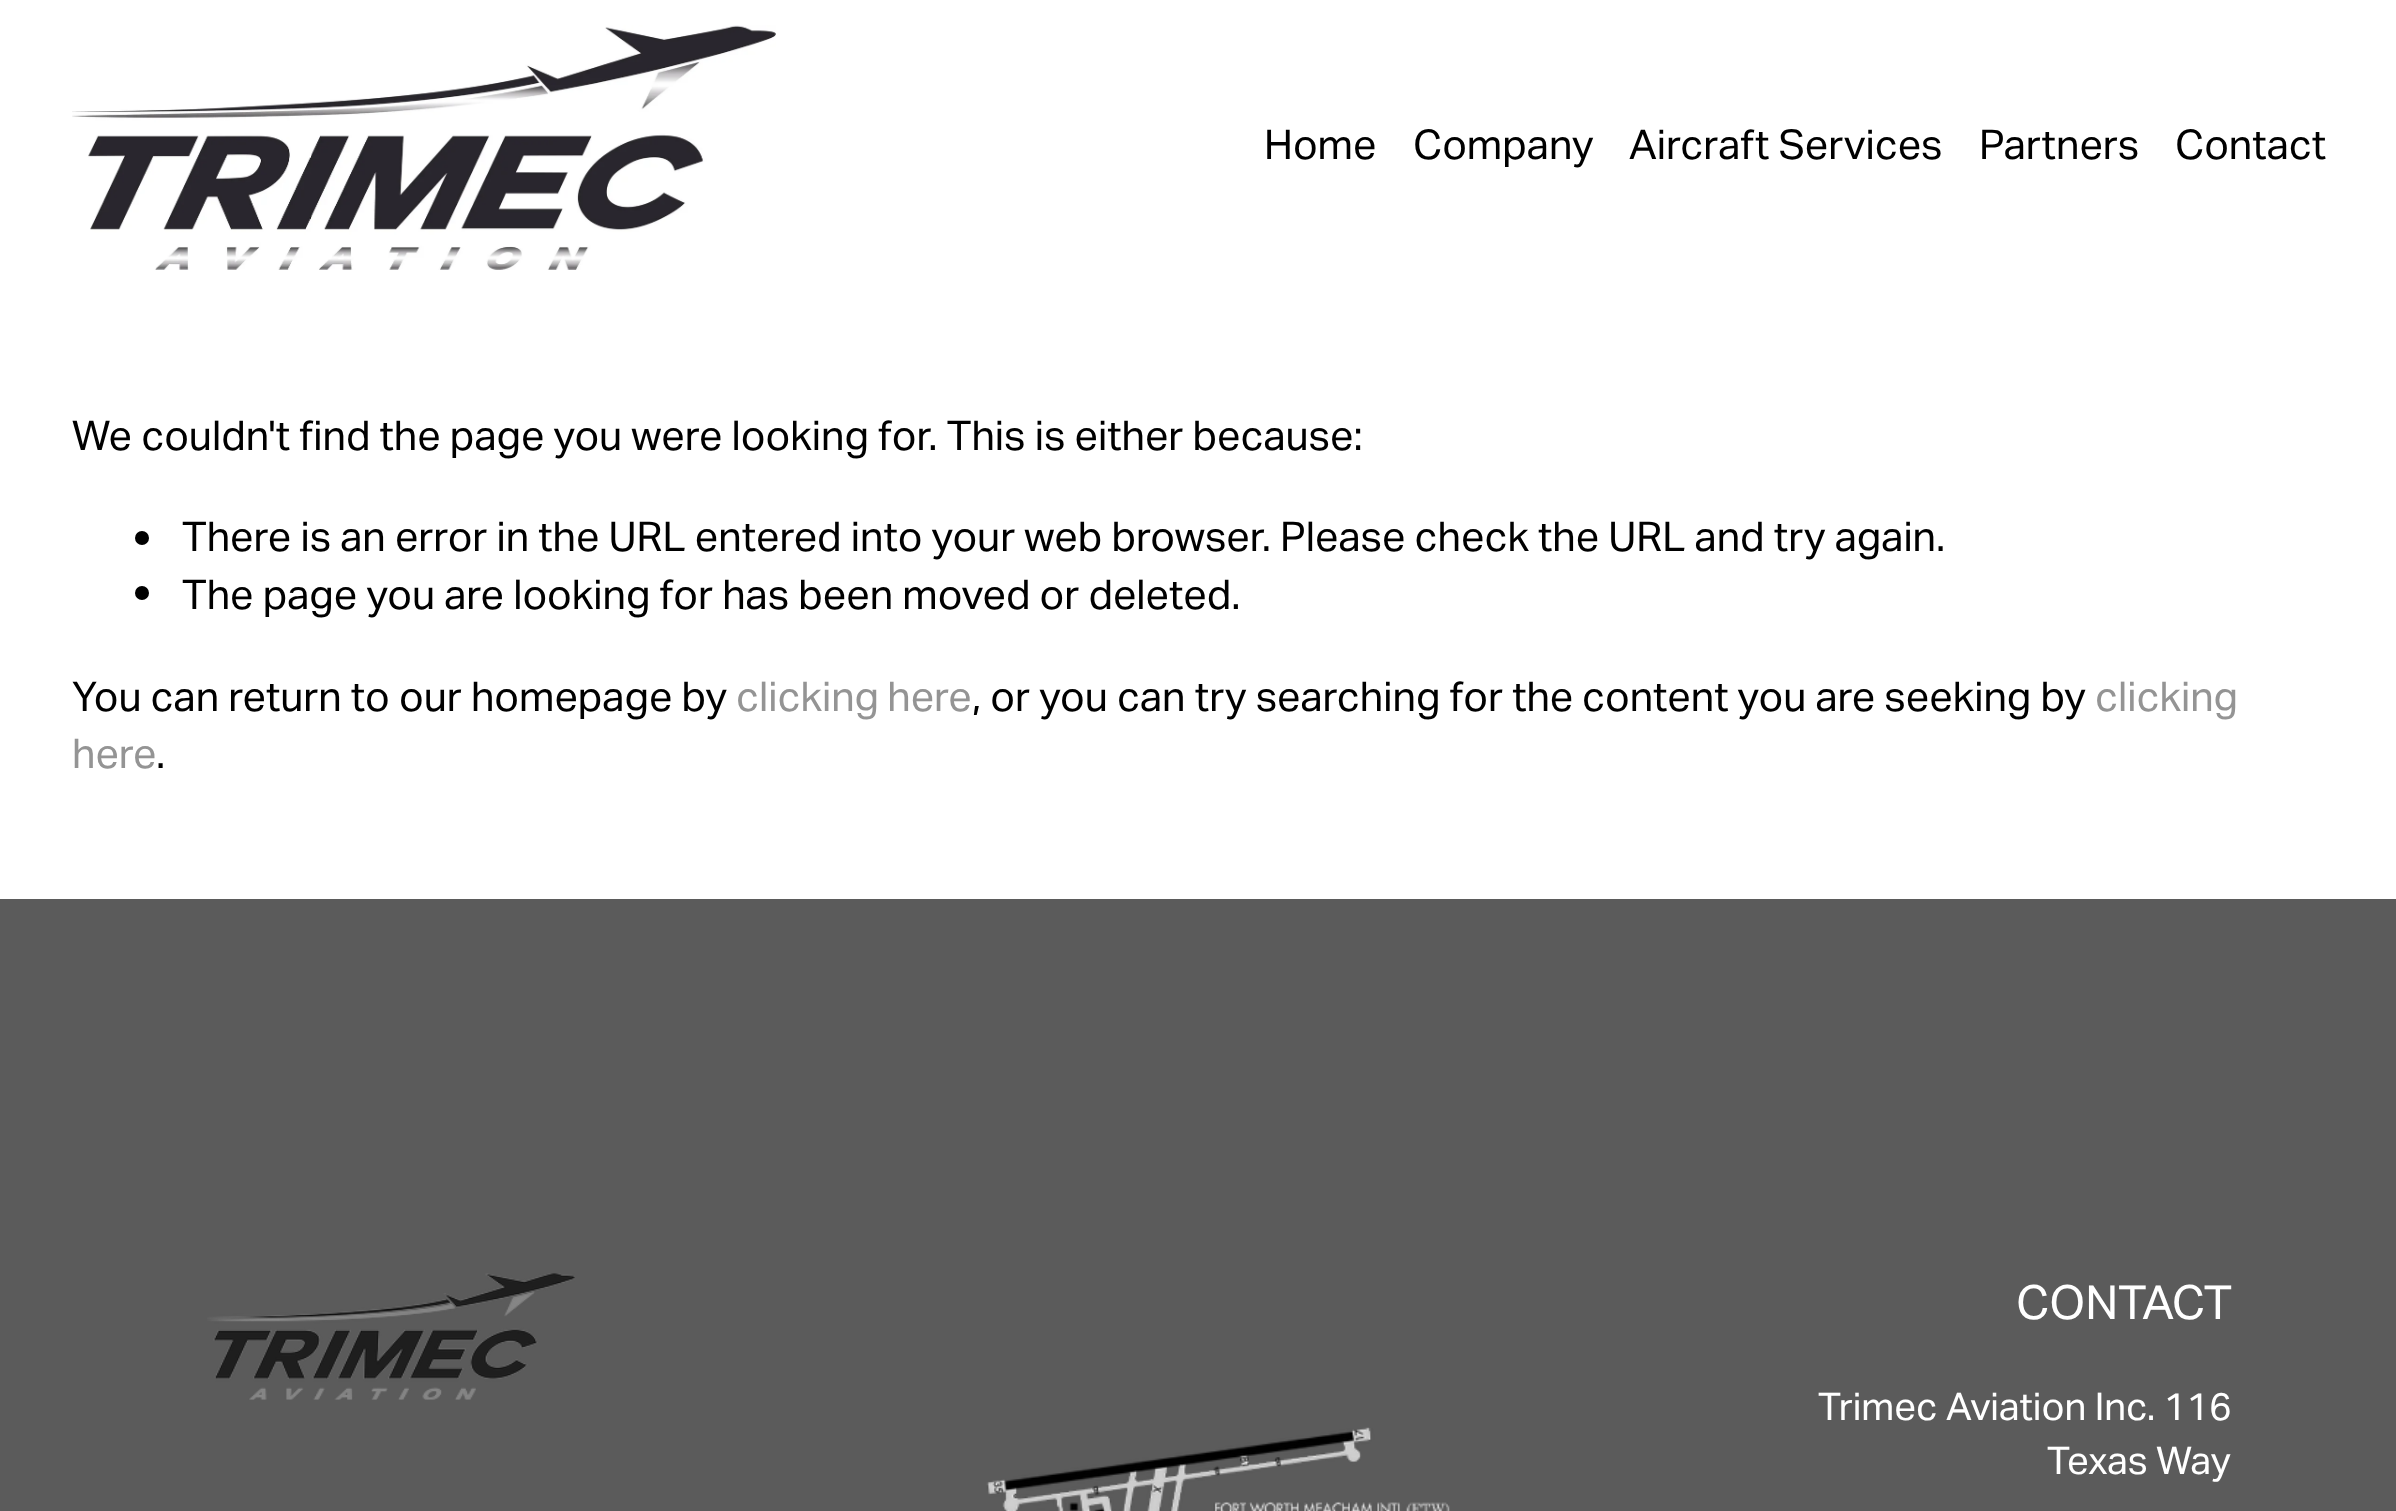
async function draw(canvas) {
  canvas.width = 2396;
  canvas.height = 1511;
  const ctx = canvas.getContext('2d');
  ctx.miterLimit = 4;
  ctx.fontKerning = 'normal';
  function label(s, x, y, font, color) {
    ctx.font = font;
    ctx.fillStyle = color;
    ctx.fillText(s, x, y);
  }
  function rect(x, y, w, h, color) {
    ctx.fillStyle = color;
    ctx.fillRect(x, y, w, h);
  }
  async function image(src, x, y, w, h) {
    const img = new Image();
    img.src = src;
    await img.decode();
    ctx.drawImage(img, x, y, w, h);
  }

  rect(0, 0, 2396, 1511, '#fff');
  await image('assets/img1.png', 72, 25, 704, 245);
  label('Home', 1264, 159, '41.1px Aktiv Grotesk', '#000');
  label('Company', 1413, 159, '41.1px Aktiv Grotesk', '#000');
  label('Aircraft Services', 1629, 159, '41.1px Aktiv Grotesk', '#000');
  label('Partners', 1979, 159, '41.1px Aktiv Grotesk', '#000');
  label('Contact', 2175, 159, '41.1px Aktiv Grotesk', '#000');
  label('We couldn\'t find the page you were looking for. This is either because:', 72, 450, '41.1px Aktiv Grotesk', '#000');
  ctx.beginPath();
  ctx.arc(142, 538, 7, 0, 2 * Math.PI);
  ctx.fill();
  label('There is an error in the URL entered into your web browser. Please check the URL and try again.', 182, 551, '41.1px Aktiv Grotesk', '#000');
  ctx.beginPath();
  ctx.arc(142, 593, 7, 0, 2 * Math.PI);
  ctx.fill();
  label('The page you are looking for has been moved or deleted.', 182, 609, '41.1px Aktiv Grotesk', '#000');
  label('You can return to our homepage by', 72, 711, '41.1px Aktiv Grotesk', '#000');
  ctx.wordSpacing = '-1px';
  label('clicking here', 736, 711, '41.1px Aktiv Grotesk', '#949494');
  ctx.wordSpacing = '0px';
  label(', or you can try searching for the', 972, 711, '41.1px Aktiv Grotesk', '#000');
  label('content you are seeking by', 1582, 711, '41.1px Aktiv Grotesk', '#000');
  label('clicking', 2095, 711, '41.1px Aktiv Grotesk', '#949494');
  label('here', 72, 768, '41.1px Aktiv Grotesk', '#949494');
  label('.', 156, 768, '41.1px Aktiv Grotesk', '#000');
  rect(0, 899, 2396, 612, '#5b5b5b');
  await image('assets/img2.png', 207, 1273, 368, 127);
  await image('assets/img3.png', 986, 1427, 464, 84);
  label('CONTACT', 2016, 1319, '47px Aktiv Grotesk', '#fff');
  label('Trimec Aviation Inc. 116', 1818, 1420, '38.25px Aktiv Grotesk', '#fff');
  label('Texas Way', 2047, 1474, '38.25px Aktiv Grotesk', '#fff');
}

draw(document.querySelector('canvas'));
